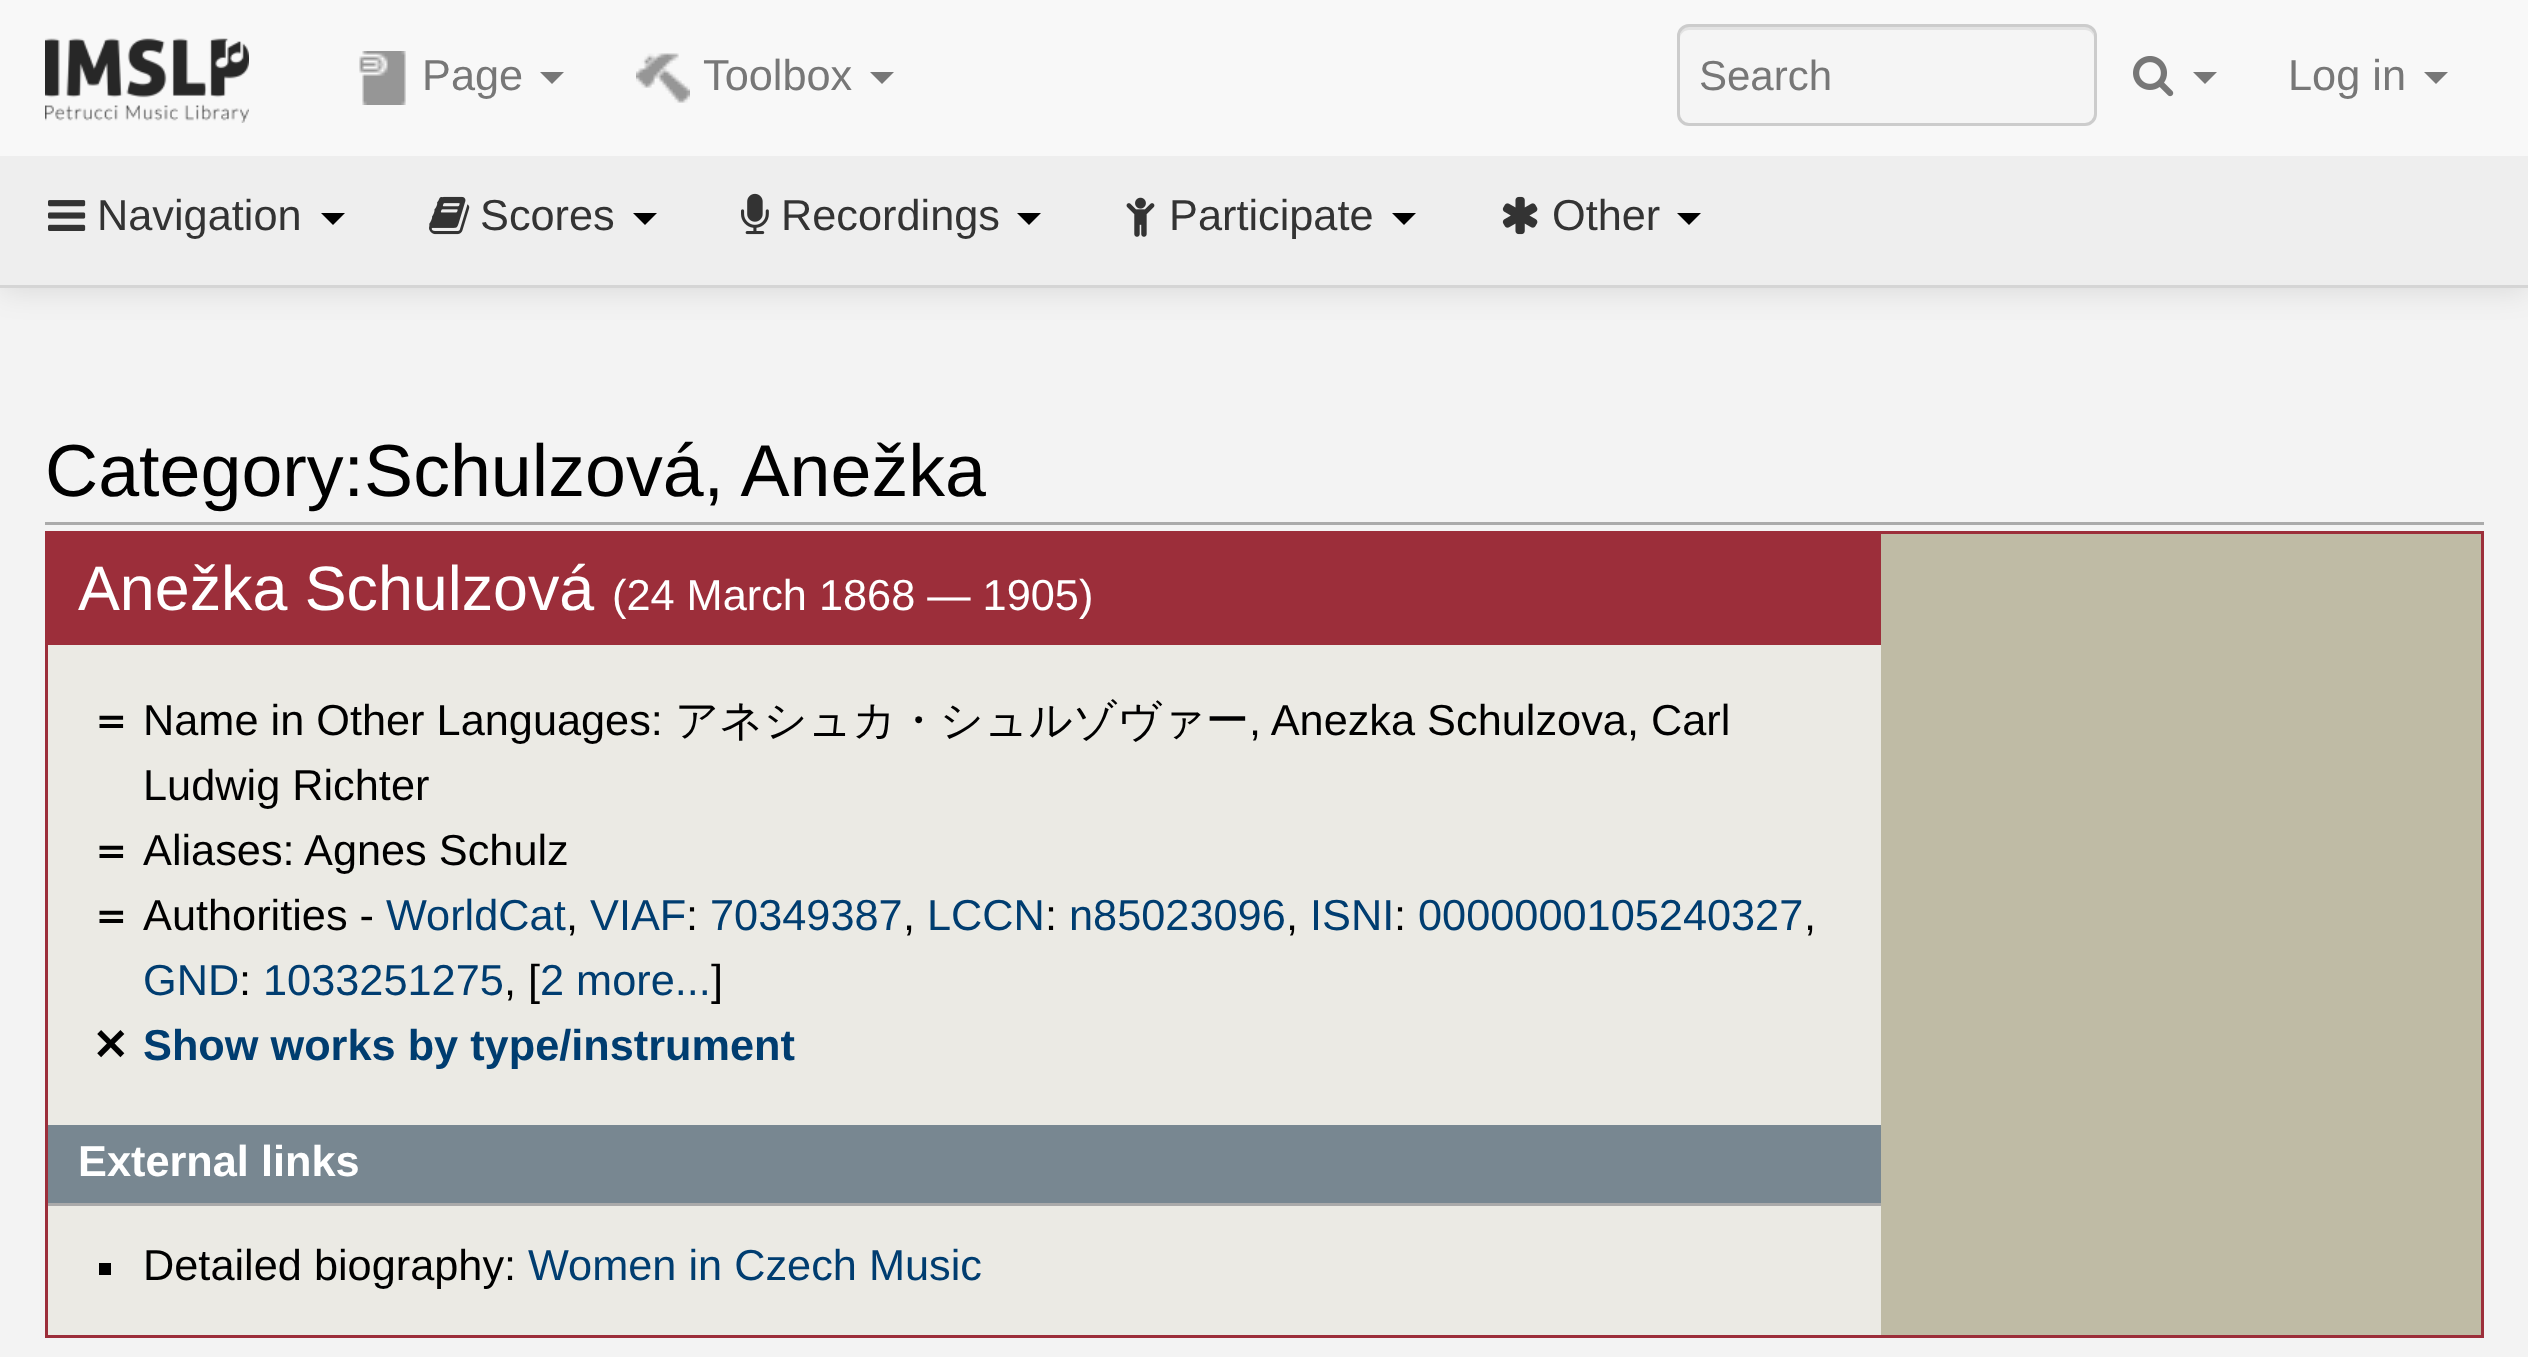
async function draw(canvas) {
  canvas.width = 2528;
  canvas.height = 1357;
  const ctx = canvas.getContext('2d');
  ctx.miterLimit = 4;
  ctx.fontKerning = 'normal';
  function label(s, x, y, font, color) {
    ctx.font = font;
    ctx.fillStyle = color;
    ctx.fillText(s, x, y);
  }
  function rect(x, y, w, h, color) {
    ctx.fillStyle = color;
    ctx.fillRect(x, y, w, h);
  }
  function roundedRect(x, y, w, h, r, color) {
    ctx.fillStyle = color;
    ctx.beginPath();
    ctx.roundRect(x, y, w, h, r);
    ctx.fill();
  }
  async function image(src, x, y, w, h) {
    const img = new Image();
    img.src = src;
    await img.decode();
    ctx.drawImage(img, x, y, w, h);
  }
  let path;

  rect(0, 0, 2528, 1357, '#f3f3f3');
  ctx.fillStyle = '#0000001a';
  ctx.filter = 'blur(15px)';
  ctx.beginPath();
  ctx.rect(0, 159, 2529, 132);
  ctx.fill();
  ctx.filter = 'none';
  rect(0, 0, 2528, 156, '#f8f8f8');
  await image('assets/img1.png', 45, 38, 204, 85);
  await image('assets/img2.png', 359, 51, 47, 54);
  label('Page', 422, 90, '43.3px Liberation Sans', '#777');
  path = new Path2D('M540 72H564L552 84Z');
  ctx.fill(path);
  await image('assets/img3.png', 636, 53, 54, 50);
  label('Toolbox', 703, 90, '43.3px Liberation Sans', '#777');
  path = new Path2D('M870 72H894L882 84Z');
  ctx.fill(path);
  roundedRect(1677, 24, 420, 102, 12, '#f5f5f5');
  ctx.fillStyle = '#e3e3e3';
  path = new Path2D('M1689 30H2085C2090 30 2094 34 2094 39C2094 34 2093 28 2087 27H1687C1681 28 1680 34 1680 39C1680 34 1684 30 1689 30Z');
  ctx.fill(path);
  ctx.beginPath();
  ctx.roundRect(1678.5, 25.5, 417, 99, 10.5);
  ctx.strokeStyle = '#ccc';
  ctx.lineWidth = 3;
  ctx.stroke();
  label('Search', 1699, 90, '42px Liberation Sans', '#777');
  await image('assets/img4.png', 2133, 56, 41, 41);
  path = new Path2D('M2193 72H2217L2205 84Z');
  ctx.fill(path);
  label('Log in', 2288, 90, '43.3px Liberation Sans', '#777');
  path = new Path2D('M2424 72H2448L2436 84Z');
  ctx.fill(path);
  rect(0, 156, 2528, 129, '#eee');
  rect(0, 285, 2528, 3, '#d5d5d5');
  await image('assets/img5.png', 48, 200, 38, 31);
  label('Navigation', 97, 230, '43.3px Liberation Sans', '#333');
  ctx.fillStyle = '#000';
  path = new Path2D('M321 213H345L333 225Z');
  ctx.fill(path);
  await image('assets/img6.png', 429, 196, 41, 39);
  label('Scores', 480, 230, '43.3px Liberation Sans', '#333');
  ctx.fillStyle = '#000';
  path = new Path2D('M633 213H657L645 225Z');
  ctx.fill(path);
  await image('assets/img7.png', 741, 193, 28, 42);
  label('Recordings', 781, 230, '43.3px Liberation Sans', '#333');
  ctx.fillStyle = '#000';
  path = new Path2D('M1017 213H1041L1029 225Z');
  ctx.fill(path);
  await image('assets/img8.png', 1126, 197, 29, 40);
  label('Participate', 1169, 230, '43.3px Liberation Sans', '#333');
  ctx.fillStyle = '#000';
  path = new Path2D('M1392 213H1416L1404 225Z');
  ctx.fill(path);
  await image('assets/img9.png', 1502, 196, 36, 39);
  label('Other', 1552, 230, '43.3px Liberation Sans', '#333');
  ctx.fillStyle = '#000';
  path = new Path2D('M1677 213H1701L1689 225Z');
  ctx.fill(path);
  rect(45, 522, 2439, 3, '#aaa');
  label('Category:Schulzová, Anežka', 45, 496, '73.6px Liberation Sans', '#000');
  ctx.strokeStyle = '#9c2e3a';
  ctx.strokeRect(46.5, 532.5, 2436, 804);
  rect(48, 645, 1833, 690, '#ebeae4');
  rect(1881, 534, 600, 801, '#bfbba5');
  rect(48, 534, 1833, 111, '#9c2e3a');
  label('Anežka Schulzová', 78, 610, '62.75px Liberation Sans', '#fff');
  label('(24 March 1868 — 1905)', 612, 610, '43.3px Liberation Sans', '#fff');
  label('＝', 89, 735, 'bold 43.3px WenQuanYi Zen Hei', '#000');
  label('Name in Other Languages:', 143, 735, '43.3px Liberation Sans', '#000');
  label('アネシュカ・シュルゾヴァー', 675, 735, '500 43.3px WenQuanYi Zen Hei', '#000');
  label(', Anezka Schulzova, Carl', 1249, 735, '43.3px Liberation Sans', '#000');
  label('Ludwig Richter', 143, 800, '43.3px Liberation Sans', '#000');
  label('＝', 89, 865, 'bold 43.3px WenQuanYi Zen Hei', '#000');
  label('Aliases:', 143, 865, '43.3px Liberation Sans', '#000');
  label('Agnes Schulz', 304, 865, '43.3px Liberation Sans', '#000');
  label('＝', 89, 930, 'bold 43.3px WenQuanYi Zen Hei', '#000');
  label('Authorities -', 143, 930, '43.3px Liberation Sans', '#000');
  label('WorldCat', 386, 930, '43.3px Liberation Sans', '#003d70');
  label('VIAF', 590, 930, '43.3px Liberation Sans', '#003d70');
  label(':', 686, 930, '43.3px Liberation Sans', '#000');
  label('70349387', 710, 930, '43.3px Liberation Sans', '#003d70');
  label('LCCN', 927, 930, '43.3px Liberation Sans', '#003d70');
  label(':', 1045, 930, '43.3px Liberation Sans', '#000');
  label('n85023096', 1069, 930, '43.3px Liberation Sans', '#003d70');
  label('ISNI', 1310, 930, '43.3px Liberation Sans', '#003d70');
  label(':', 1394, 930, '43.3px Liberation Sans', '#000');
  label('0000000105240327', 1418, 930, '43.3px Liberation Sans', '#003d70');
  label(',', 566, 930, '43.3px Liberation Sans', '#000');
  label(',', 903, 930, '43.3px Liberation Sans', '#000');
  label(',', 1286, 930, '43.3px Liberation Sans', '#000');
  label(',', 1804, 930, '43.3px Liberation Sans', '#000');
  label('GND', 143, 995, '43.3px Liberation Sans', '#003d70');
  label(':', 239, 995, '43.3px Liberation Sans', '#000');
  label('1033251275', 263, 995, '43.3px Liberation Sans', '#003d70');
  label(', [', 504, 995, '43.3px Liberation Sans', '#000');
  label('2 more...', 540, 995, '43.3px Liberation Sans', '#003d70');
  label(']', 711, 995, '43.3px Liberation Sans', '#000');
  label('✕', 92, 1060, 'bold 43.3px DejaVu Sans', '#000');
  label('Show works by type/instrument', 143, 1060, 'bold 43.3px Liberation Sans', '#003d70');
  rect(48, 1125, 1833, 78, '#788791');
  rect(48, 1203, 1833, 3, '#aaa');
  label('External links', 78, 1176, 'bold 43.3px Liberation Sans', '#fff');
  rect(99, 1263, 12, 12, '#000');
  label('Detailed biography:', 143, 1280, '43.3px Liberation Sans', '#000');
  label('Women in Czech Music', 528, 1280, '43.3px Liberation Sans', '#003d70');
}

draw(document.querySelector('canvas'));
